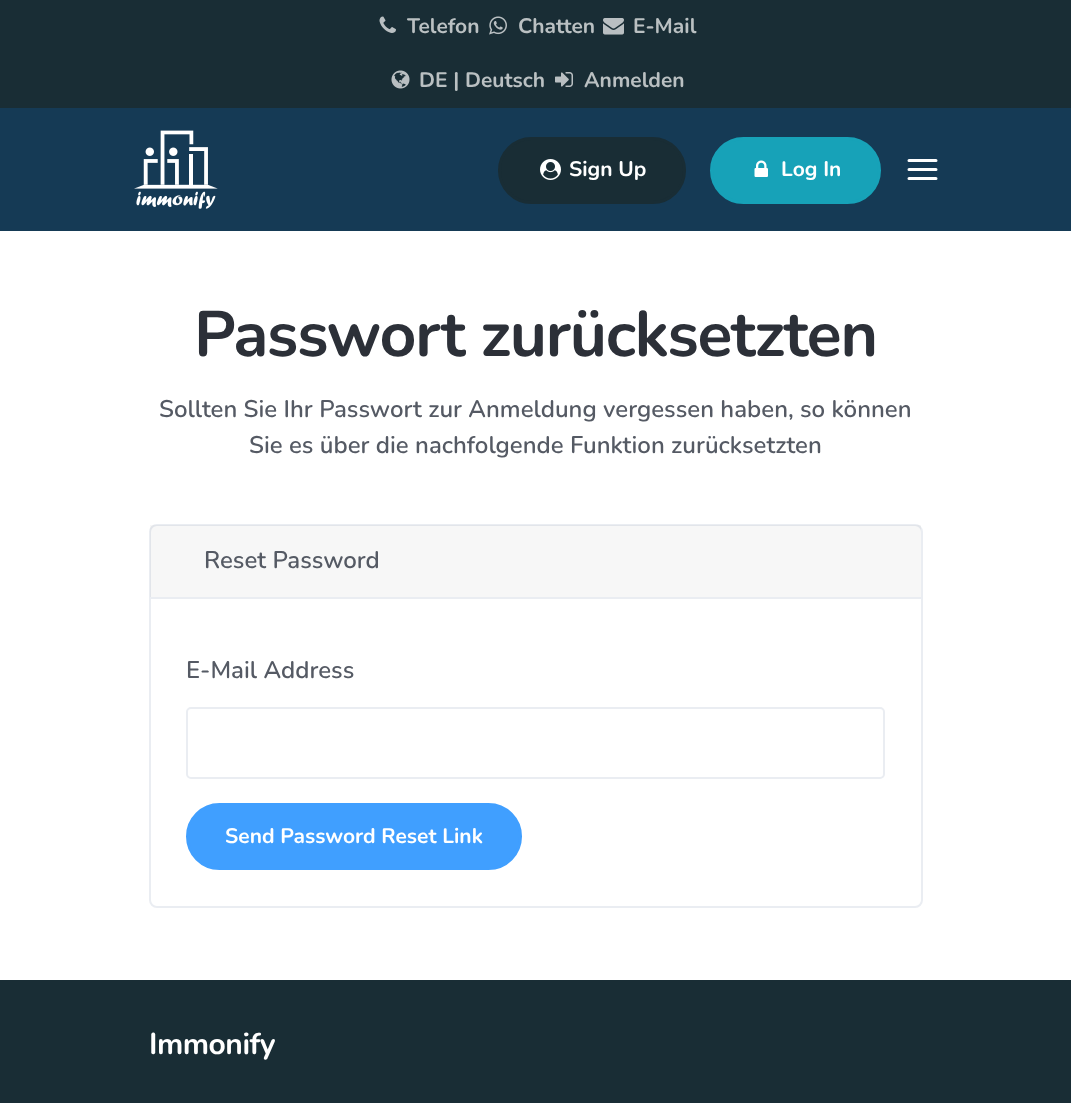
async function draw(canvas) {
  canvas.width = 1071;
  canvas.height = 1103;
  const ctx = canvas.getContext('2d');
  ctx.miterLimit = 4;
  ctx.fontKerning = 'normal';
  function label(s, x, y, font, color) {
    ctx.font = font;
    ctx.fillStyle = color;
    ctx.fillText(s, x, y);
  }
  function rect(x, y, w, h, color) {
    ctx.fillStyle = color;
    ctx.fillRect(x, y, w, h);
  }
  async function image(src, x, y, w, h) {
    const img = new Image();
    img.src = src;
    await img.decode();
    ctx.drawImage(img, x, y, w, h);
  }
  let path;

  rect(0, 0, 1071, 1103, '#fff');
  rect(0, 0, 1071, 108, '#192d35');
  await image('assets/img1.png', 379, 16, 17, 17);
  label('Telefon', 407, 33, 'bold 21px Nunito', '#bac0c2');
  await image('assets/img2.png', 489, 16, 18, 19);
  label('Chatten', 518, 33, 'bold 21px Nunito', '#bac0c2');
  await image('assets/img3.png', 603, 18, 21, 17);
  label('E-Mail', 633, 33, 'bold 21px Nunito', '#bac0c2');
  await image('assets/img4.png', 391, 70, 19, 19);
  label('DE | Deutsch', 419, 87, 'bold 21px Nunito', '#bac0c2');
  await image('assets/img5.png', 555, 72, 18, 15);
  label('Anmelden', 584, 87, 'bold 21px Nunito', '#bac0c2');
  rect(0, 108, 1071, 123, '#153a55');
  await image('assets/img6.png', 134, 130, 84, 79);
  ctx.fillStyle = '#192d35';
  ctx.beginPath();
  ctx.roundRect(499.5, 138.5, 185, 64, 32);
  ctx.fill();
  ctx.strokeStyle = '#192d35';
  ctx.lineWidth = 3;
  ctx.stroke();
  await image('assets/img7.png', 540, 159, 21, 21);
  label('Sign Up', 569, 176, 'bold 21px Nunito', '#fff');
  ctx.fillStyle = '#17a2b8';
  ctx.beginPath();
  ctx.roundRect(711.5, 138.5, 168, 64, 32);
  ctx.fill();
  ctx.strokeStyle = '#17a2b8';
  ctx.stroke();
  await image('assets/img8.png', 754, 160, 14, 17);
  label('Log In', 781, 176, 'bold 21px Nunito', '#fff');
  path = new Path2D('M909 169.5H936M909 160.5H936M909 178.5H936');
  ctx.strokeStyle = '#fff';
  ctx.lineCap = 'round';
  ctx.lineJoin = 'round';
  ctx.stroke(path);
  ctx.letterSpacing = '-1.25px';
  label('Passwort zurücksetzten', 194, 356, 'bold 64.25px Nunito', '#2c3038');
  ctx.letterSpacing = '0px';
  label('Sollten Sie Ihr Passwort zur Anmeldung vergessen haben, so können', 159, 417, '600 24px Nunito', '#555a64');
  label('Sie es über die nachfolgende Funktion zurücksetzten', 249, 453, '600 24px Nunito', '#555a64');
  ctx.beginPath();
  ctx.roundRect(150, 525, 772, 382, 7);
  ctx.strokeStyle = '#eaedf2';
  ctx.lineWidth = 2;
  ctx.lineJoin = 'miter';
  ctx.stroke();
  rect(150, 525, 771, 72, '#00000008');
  rect(150, 597, 771, 2, '#eaedf2');
  label('Reset Password', 204, 568, '600 24px Nunito', '#555a64');
  label('E-Mail Address', 186, 678, '600 24px Nunito', '#555a64');
  ctx.beginPath();
  ctx.roundRect(187, 708, 697, 70, 4);
  ctx.stroke();
  ctx.fillStyle = '#409fff';
  ctx.beginPath();
  ctx.roundRect(187.5, 804.5, 333, 64, 32);
  ctx.fill();
  ctx.strokeStyle = '#409fff';
  ctx.lineWidth = 3;
  ctx.stroke();
  label('Send Password Reset Link', 225, 843, 'bold 21px Nunito', '#fff');
  rect(0, 980, 1071, 123, '#192d35');
  ctx.letterSpacing = '-0.5px';
  label('Immonify', 149, 1054, 'bold 30px Nunito', '#fff');
}

draw(document.querySelector('canvas'));
